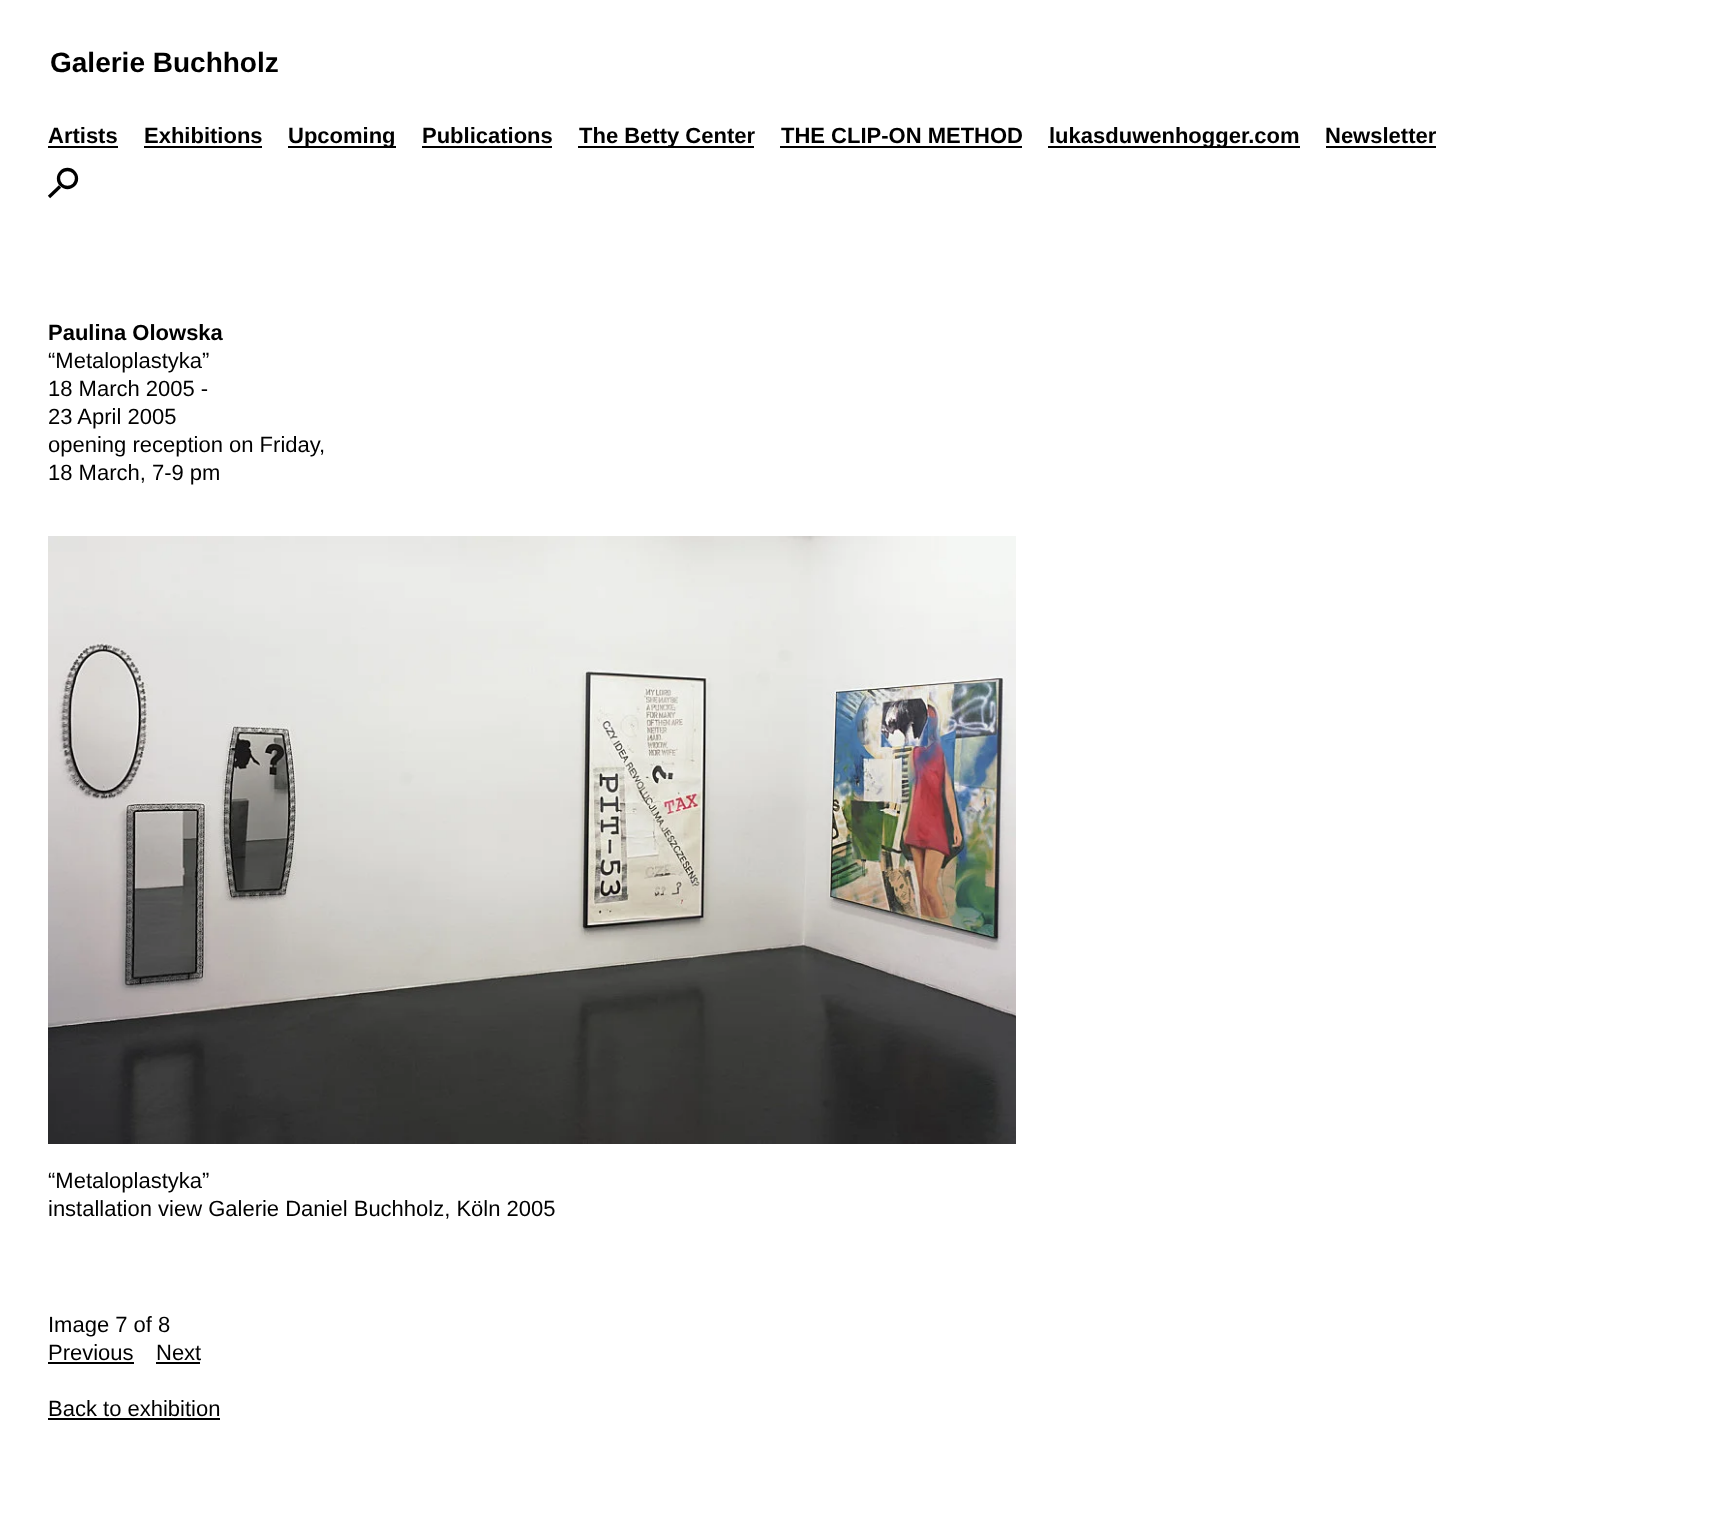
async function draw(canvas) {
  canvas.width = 1717;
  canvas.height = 1514;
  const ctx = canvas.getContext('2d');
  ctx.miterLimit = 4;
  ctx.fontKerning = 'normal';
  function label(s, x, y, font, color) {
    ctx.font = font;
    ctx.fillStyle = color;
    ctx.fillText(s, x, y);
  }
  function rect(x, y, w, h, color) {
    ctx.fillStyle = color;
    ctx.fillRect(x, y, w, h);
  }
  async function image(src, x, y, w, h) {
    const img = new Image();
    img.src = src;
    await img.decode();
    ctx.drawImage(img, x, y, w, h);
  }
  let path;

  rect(0, 0, 1717, 1514, '#fff');
  label('Galerie Buchholz', 50, 72, 'bold 28px Liberation Sans', '#000');
  label('Artists', 48, 143, 'bold 22px Liberation Sans', '#000');
  rect(48, 146, 70, 2, '#000');
  label('Exhibitions', 144, 143, 'bold 22px Liberation Sans', '#000');
  rect(144, 146, 118, 2, '#000');
  rect(288, 146, 108, 2, '#000');
  label('Upcoming', 288, 143, 'bold 22px Liberation Sans', '#000');
  label('Publications', 422, 143, 'bold 22px Liberation Sans', '#000');
  rect(422, 146, 130, 2, '#000');
  rect(578, 146, 176, 2, '#000');
  label('The Betty Center', 579, 143, 'bold 22px Liberation Sans', '#000');
  label('THE CLIP-ON METHOD', 781, 143, 'bold 22px Liberation Sans', '#000');
  rect(780, 146, 242, 2, '#000');
  rect(1048, 146, 252, 2, '#000');
  label('lukasduwenhogger.com', 1049, 143, 'bold 22px Liberation Sans', '#000');
  label('Newsletter', 1325, 143, 'bold 22px Liberation Sans', '#000');
  rect(1326, 146, 110, 2, '#000');
  ctx.beginPath();
  ctx.arc(67.5, 178.5, 9, 0, 2 * Math.PI);
  ctx.strokeStyle = '#000';
  ctx.lineWidth = 3.3;
  ctx.stroke();
  path = new Path2D('M60 186.5L49 197');
  ctx.stroke(path);
  label('Paulina Olowska', 48, 340, 'bold 22px Liberation Sans', '#000');
  label('“Metaloplastyka”', 48, 368, '22px Liberation Sans', '#000');
  label('18 March 2005 -', 48, 396, '22px Liberation Sans', '#000');
  label('23 April 2005', 48, 424, '22px Liberation Sans', '#000');
  label('opening reception on Friday,', 48, 452, '22px Liberation Sans', '#000');
  label('18 March, 7-9 pm', 48, 480, '22px Liberation Sans', '#000');
  await image('assets/img1.png', 48, 536, 968, 608);
  label('“Metaloplastyka”', 48, 1188, '22px Liberation Sans', '#000');
  label('installation view Galerie Daniel Buchholz, Köln 2005', 48, 1216, '22px Liberation Sans', '#000');
  label('Image 7 of 8', 48, 1332, '22px Liberation Sans', '#000');
  label('Previous', 48, 1360, '22px Liberation Sans', '#000');
  rect(48, 1362, 86, 2, '#000');
  label('Next', 156, 1360, '22px Liberation Sans', '#000');
  rect(156, 1362, 44, 2, '#000');
  label('Back to exhibition', 48, 1416, '22px Liberation Sans', '#000');
  rect(48, 1418, 172, 2, '#000');
}

draw(document.querySelector('canvas'));
